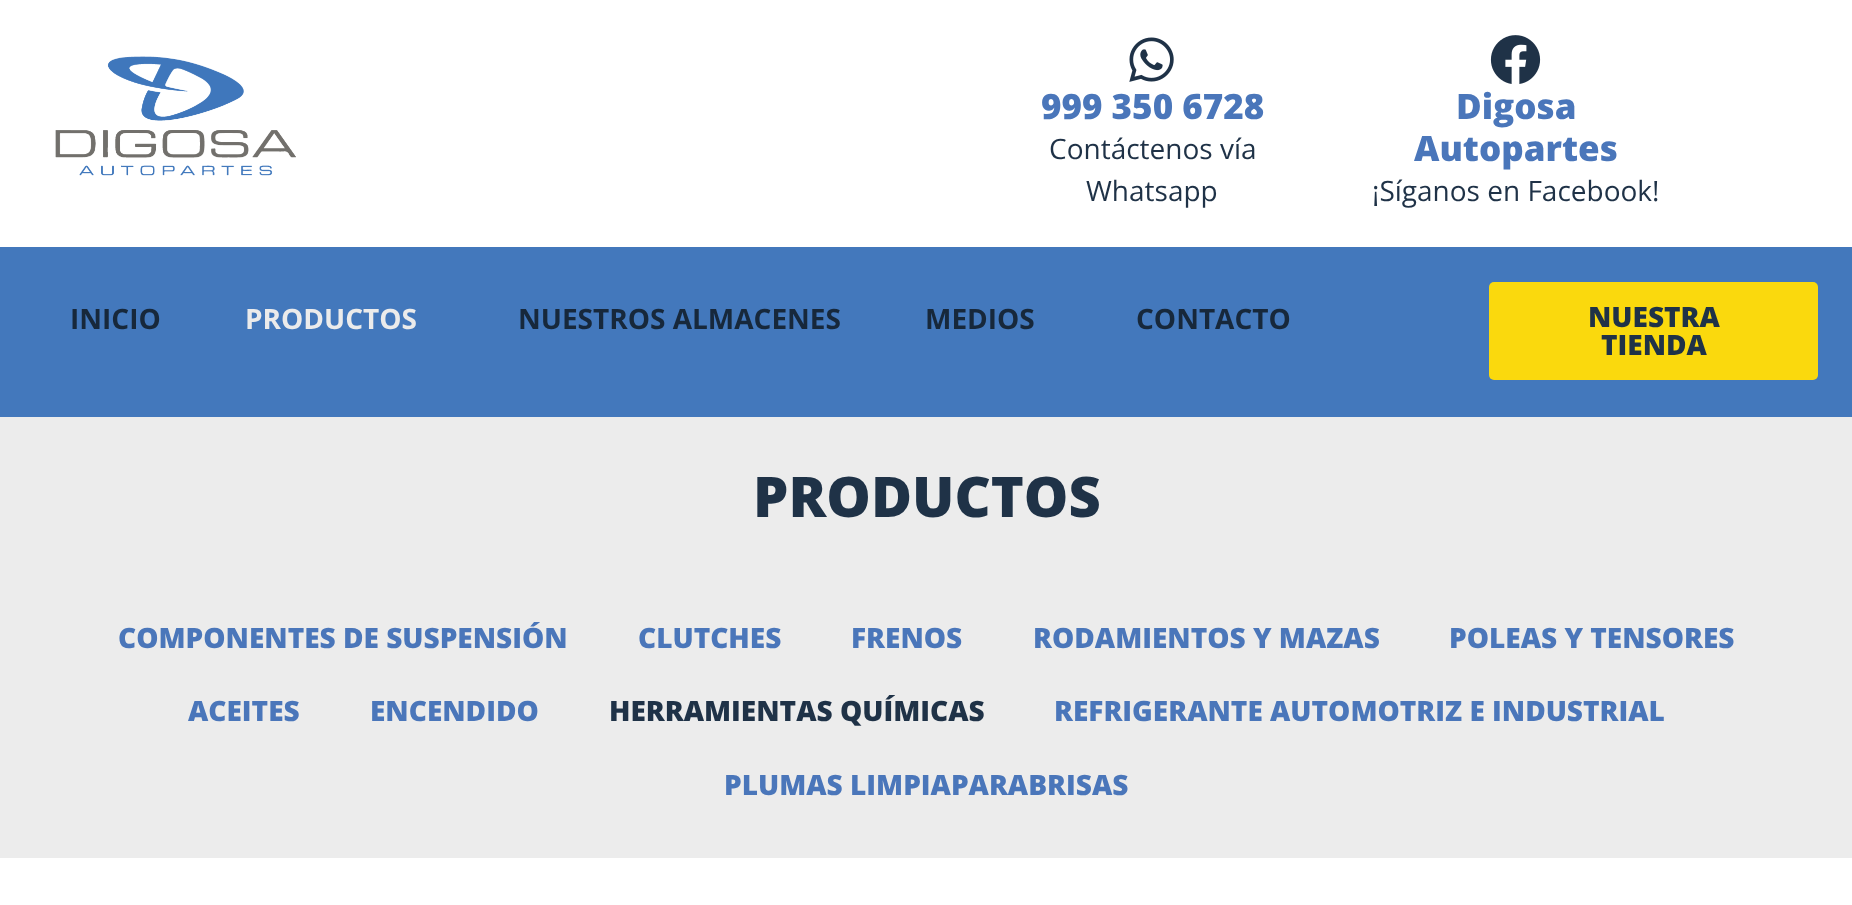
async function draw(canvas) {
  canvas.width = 1852;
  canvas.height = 905;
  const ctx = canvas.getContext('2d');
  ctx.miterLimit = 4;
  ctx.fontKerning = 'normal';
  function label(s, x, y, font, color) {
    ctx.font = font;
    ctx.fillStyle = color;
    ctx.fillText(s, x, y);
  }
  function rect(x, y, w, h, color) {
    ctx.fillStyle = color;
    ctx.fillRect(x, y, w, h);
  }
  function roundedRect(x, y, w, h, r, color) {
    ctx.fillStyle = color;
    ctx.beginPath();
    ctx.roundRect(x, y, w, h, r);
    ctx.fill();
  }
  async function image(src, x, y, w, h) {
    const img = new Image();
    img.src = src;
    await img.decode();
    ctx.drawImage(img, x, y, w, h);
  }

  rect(0, 0, 1852, 905, '#fff');
  await image('assets/img1.png', 55, 56, 241, 120);
  await image('assets/img2.png', 1129, 37, 45, 45);
  label('999 350 6728', 1041, 119, '800 35px Open Sans', '#4a76ba');
  label('Contáctenos vía', 1049, 159, '28px Open Sans', '#1f3247');
  label('Whatsapp', 1086, 201, '28px Open Sans', '#1f3247');
  await image('assets/img3.png', 1490, 35, 51, 49);
  label('Digosa', 1456, 119, '800 35px Open Sans', '#4a76ba');
  label('Autopartes', 1414, 161, '800 35px Open Sans', '#4a76ba');
  label('¡Síganos en Facebook!', 1372, 201, '28px Open Sans', '#1f3247');
  rect(0, 247, 1852, 170, '#4378bc');
  label('INICIO', 70, 329, 'bold 28px Open Sans', '#17283b');
  label('PRODUCTOS', 245, 329, 'bold 28px Open Sans', '#ebebeb');
  label('NUESTROS ALMACENES', 518, 329, 'bold 28px Open Sans', '#17283b');
  label('MEDIOS', 925, 329, 'bold 28px Open Sans', '#17283b');
  label('CONTACTO', 1136, 329, 'bold 28px Open Sans', '#17283b');
  roundedRect(1489, 282, 329, 98, 5, '#fad90d');
  label('NUESTRA', 1588, 327, '800 28px Open Sans', '#1f3247');
  label('TIENDA', 1601, 355, '800 28px Open Sans', '#1f3247');
  rect(0, 417, 1852, 441, '#ececec');
  label('PRODUCTOS', 753, 517, '800 56px Open Sans', '#1f3247');
  label('COMPONENTES DE SUSPENSIÓN', 118, 648, '800 28px Open Sans', '#4a76ba');
  label('CLUTCHES', 638, 648, '800 28px Open Sans', '#4a76ba');
  label('FRENOS', 851, 648, '800 28px Open Sans', '#4a76ba');
  label('RODAMIENTOS Y MAZAS', 1033, 648, '800 28px Open Sans', '#4a76ba');
  label('POLEAS Y TENSORES', 1449, 648, '800 28px Open Sans', '#4a76ba');
  label('ACEITES', 188, 721, '800 28px Open Sans', '#4a76ba');
  label('ENCENDIDO', 370, 721, '800 28px Open Sans', '#4a76ba');
  label('HERRAMIENTAS QUÍMICAS', 609, 721, '800 28px Open Sans', '#1f3247');
  label('REFRIGERANTE AUTOMOTRIZ E INDUSTRIAL', 1054, 721, '800 28px Open Sans', '#4a76ba');
  label('PLUMAS LIMPIAPARABRISAS', 724, 795, '800 28px Open Sans', '#4a76ba');
}

draw(document.querySelector('canvas'));
